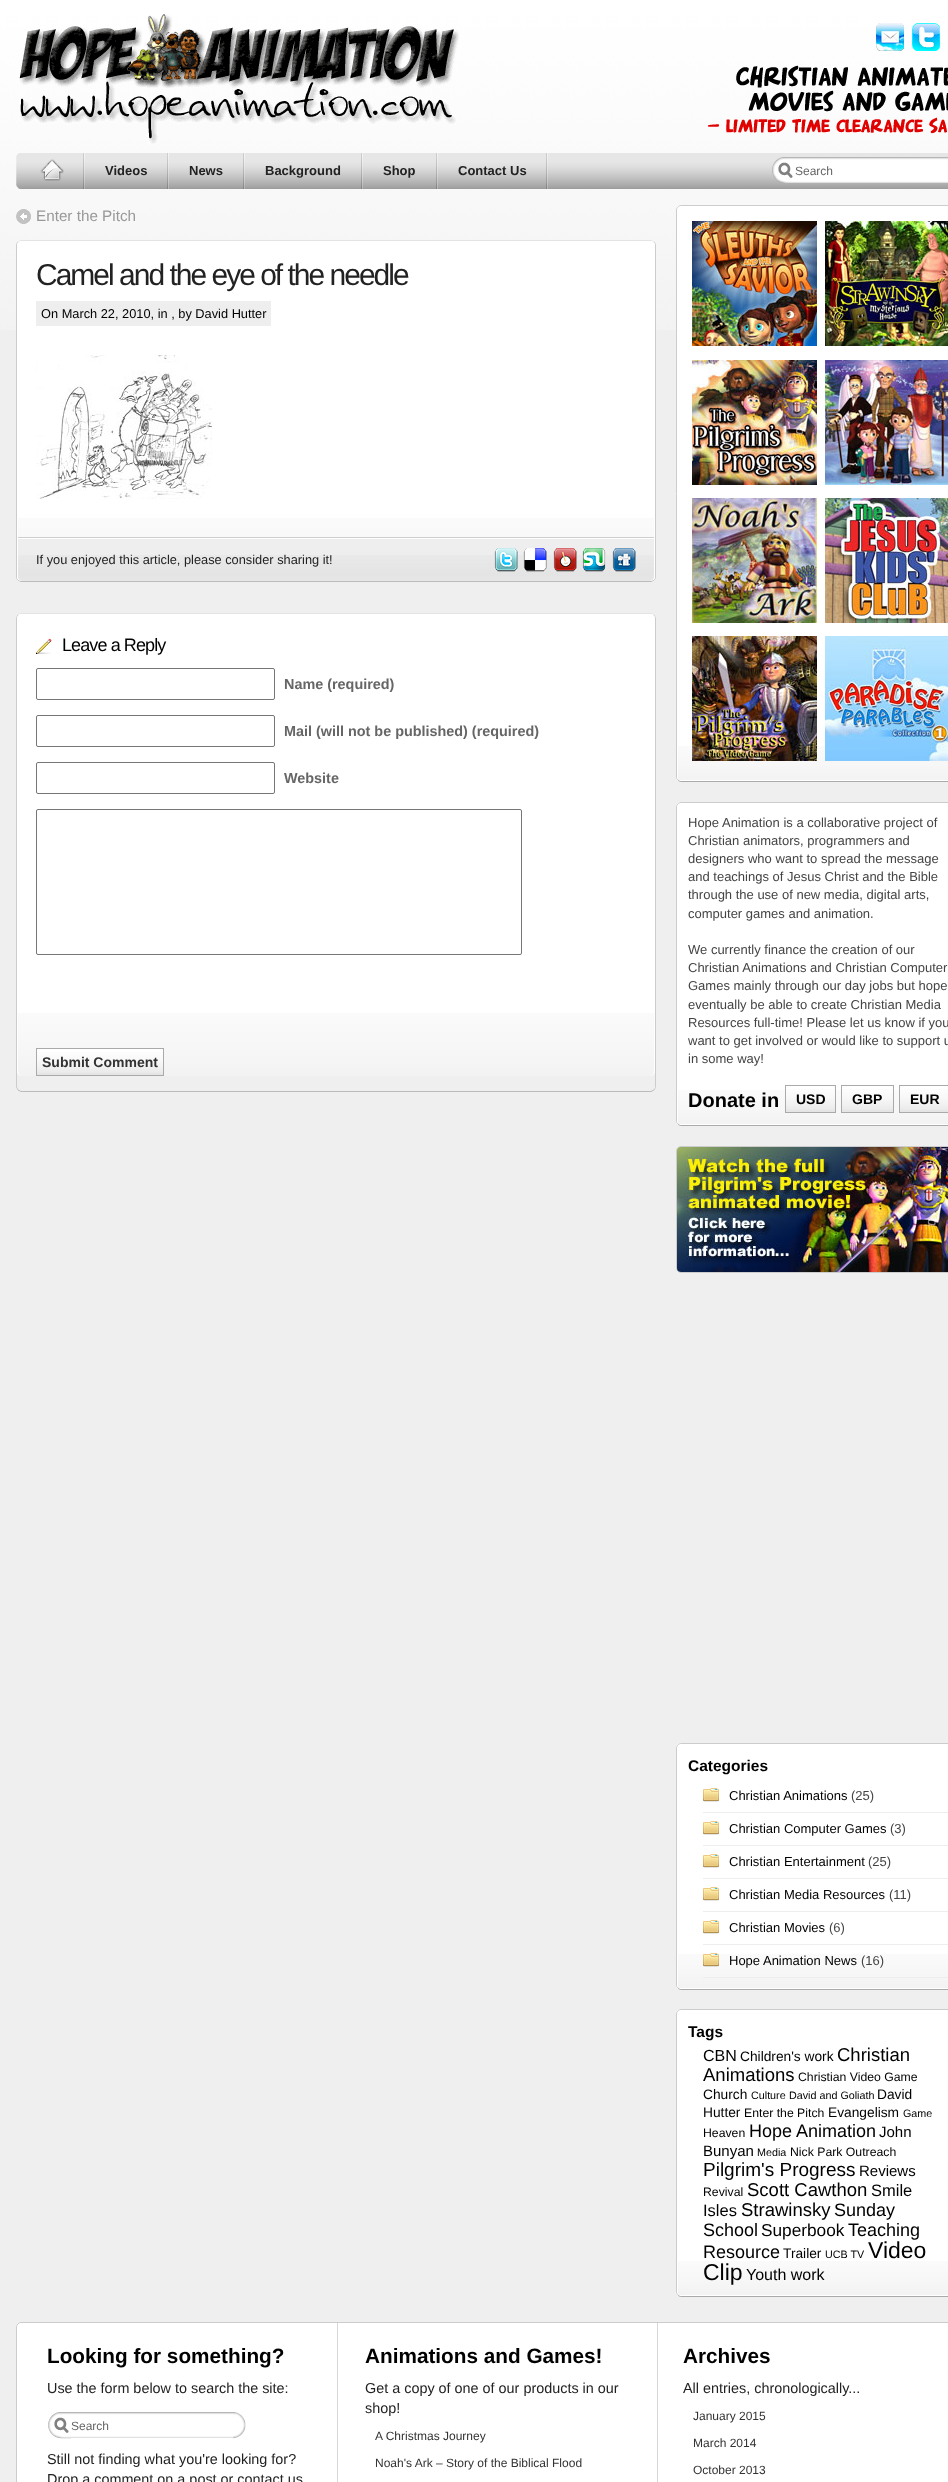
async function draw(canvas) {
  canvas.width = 948;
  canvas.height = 2482;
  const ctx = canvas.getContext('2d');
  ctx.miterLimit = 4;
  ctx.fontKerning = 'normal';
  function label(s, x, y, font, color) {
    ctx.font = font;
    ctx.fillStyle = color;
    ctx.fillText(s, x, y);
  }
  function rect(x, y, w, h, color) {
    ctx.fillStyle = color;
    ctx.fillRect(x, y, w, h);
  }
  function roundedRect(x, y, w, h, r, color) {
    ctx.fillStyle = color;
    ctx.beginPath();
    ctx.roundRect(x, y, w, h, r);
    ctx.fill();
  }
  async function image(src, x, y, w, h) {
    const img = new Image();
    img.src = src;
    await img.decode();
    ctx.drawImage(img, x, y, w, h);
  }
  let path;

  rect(0, 0, 948, 2482, '#efefef');
  await image('assets/img1.png', 0, 0, 948, 330);
  await image('assets/img2.png', 19, 14, 440, 130);
  await image('assets/img3.png', 876, 23, 28, 28);
  await image('assets/img4.png', 912, 23, 28, 28);
  await image('assets/img5.png', 708, 65, 240, 69);
  await image('assets/img6.png', 16, 153, 932, 36);
  await image('assets/img7.png', 83, 153, 2, 36);
  await image('assets/img8.png', 40, 159, 24, 22);
  await image('assets/img7.png', 167, 153, 2, 36);
  label('Videos', 105, 175, 'bold 13px Liberation Sans', '#222');
  await image('assets/img7.png', 243, 153, 2, 36);
  label('News', 189, 175, 'bold 13px Liberation Sans', '#222');
  await image('assets/img7.png', 361, 153, 2, 36);
  label('Background', 265, 175, 'bold 13px Liberation Sans', '#222');
  await image('assets/img7.png', 436, 153, 2, 36);
  label('Shop', 383, 175, 'bold 13px Liberation Sans', '#222');
  await image('assets/img7.png', 546, 153, 2, 36);
  label('Contact Us', 458, 175, 'bold 13px Liberation Sans', '#222');
  await image('assets/img9.png', 772, 157, 23, 26);
  await image('assets/img10.png', 795, 157, 153, 26);
  label('Search', 795, 175, '12px Liberation Sans', '#666');
  await image('assets/img11.png', 16, 209, 15, 15);
  label('Enter the Pitch', 36, 221, '15.25px Liberation Sans', '#999');
  path = new Path2D('M18 242L21 240.5H651L654 242');
  ctx.strokeStyle = '#e4e4e4';
  ctx.stroke(path);
  path = new Path2D('M654 242C655 242.5 655.5 244 655.5 245V577C655.5 578 655 579.5 654 580');
  ctx.strokeStyle = '#ccc';
  ctx.stroke(path);
  path = new Path2D('M654 580L651 581.5H21L18 580');
  ctx.strokeStyle = '#bbb';
  ctx.stroke(path);
  path = new Path2D('M18 580C17 579.5 16.5 578 16.5 577V245C16.5 244 17 242.5 18 242');
  ctx.strokeStyle = '#ccc';
  ctx.stroke(path);
  roundedRect(17, 241, 638, 340, 5, '#fff');
  await image('assets/img12.png', 17, 518, 638, 63);
  path = new Path2D('M22 241H650C653 241 655 243 655 246V576C655 579 653 581 650 581H22C19 581 17 579 17 576V246C17 243 19 241 22 241ZM22 242H650C652 242 654 244 654 246V576C654 579 652 581 650 581H22C20 581 18 579 18 576V246C18 244 20 242 22 242Z');
  ctx.fill(path, 'evenodd');
  ctx.letterSpacing = '-2px';
  label('Camel and the eye of the needle', 36, 285, '30px Liberation Sans', '#222');
  rect(36, 301, 235, 25, '#eee');
  ctx.letterSpacing = '0px';
  label('On March 22, 2010, in , by David Hutter', 41, 318, '12.8px Liberation Sans', '#000');
  await image('assets/img13.png', 36, 355, 176, 144);
  await image('assets/img14.png', 18, 537, 636, 2);
  ctx.fillStyle = '#eee';
  ctx.beginPath();
  ctx.roundRect(18, 539, 636, 42, [0, 0, 5, 5]);
  ctx.fill();
  await image('assets/img15.png', 18, 555, 636, 26);
  label('If you enjoyed this article, please consider sharing it!', 36, 564, '12.8px Liberation Sans', '#222');
  await image('assets/img16.png', 494, 548, 24, 24);
  await image('assets/img17.png', 523, 548, 24, 24);
  await image('assets/img18.png', 553, 548, 24, 24);
  await image('assets/img19.png', 582, 548, 24, 24);
  await image('assets/img20.png', 612, 548, 24, 24);
  path = new Path2D('M18 615L21 613.5H651L654 615');
  ctx.strokeStyle = '#e4e4e4';
  ctx.stroke(path);
  path = new Path2D('M654 615L655.5 618V1087.5L654 1090');
  ctx.strokeStyle = '#ccc';
  ctx.stroke(path);
  path = new Path2D('M654 1090L651 1091.5H21L18 1090');
  ctx.strokeStyle = '#bbb';
  ctx.stroke(path);
  path = new Path2D('M18 1090L16.5 1087V617.5L18 615');
  ctx.strokeStyle = '#ccc';
  ctx.stroke(path);
  roundedRect(17, 614, 638, 462, 5, '#fff');
  await image('assets/img21.png', 17, 1013, 638, 63);
  path = new Path2D('M22 614H650C653 614 655 616 655 619V1071C655 1074 653 1076 650 1076H22C19 1076 17 1074 17 1071V619C17 616 19 614 22 614ZM22 615H650C652 615 654 617 654 619V1071C654 1074 652 1076 650 1076H22C20 1076 18 1074 18 1071V619C18 617 20 615 22 615Z');
  ctx.fill(path, 'evenodd');
  await image('assets/img22.png', 36, 638, 16, 16);
  ctx.letterSpacing = '-0.9px';
  label('Leave a Reply', 62, 651, '18px Liberation Sans', '#000');
  ctx.beginPath();
  ctx.roundRect(36.5, 668.5, 238, 31, 1.5);
  ctx.strokeStyle = '#767676';
  ctx.stroke();
  ctx.letterSpacing = '0px';
  label('Name (required)', 284, 689, 'bold 14.4px Liberation Sans', '#666');
  ctx.beginPath();
  ctx.roundRect(36.5, 715.5, 238, 31, 1.5);
  ctx.stroke();
  label('Mail (will not be published) (required)', 284, 736, 'bold 14.4px Liberation Sans', '#666');
  ctx.beginPath();
  ctx.roundRect(36.5, 762.5, 238, 31, 1.5);
  ctx.stroke();
  label('Website', 284, 783, 'bold 14.4px Liberation Sans', '#666');
  ctx.beginPath();
  ctx.roundRect(36.5, 809.5, 485, 145, 1.5);
  ctx.stroke();
  rect(37, 1073, 126, 2, '#e5e5e5');
  await image('assets/img23.png', 37, 1049, 126, 24);
  ctx.strokeStyle = '#aaa';
  ctx.strokeRect(36.5, 1048.5, 127, 27);
  label('Submit Comment', 42, 1067, 'bold 14px Liberation Sans', '#333');
  roundedRect(676, 205, 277, 577, 5, '#fff');
  path = new Path2D('M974 207C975 207.5 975.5 209 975.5 210V777C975.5 778 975 779.5 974 780C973.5 781 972 781.5 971 781.5H681C680 781.5 678.5 781 678 780');
  ctx.stroke(path);
  path = new Path2D('M678 780C677 779.5 676.5 778 676.5 777V210C676.5 209 677 207.5 678 207C678.5 206 680 205.5 681 205.5H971C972 205.5 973.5 206 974 207');
  ctx.strokeStyle = '#ccc';
  ctx.stroke(path);
  await image('assets/img24.png', 678, 746, 270, 34);
  await image('assets/img25.png', 692, 221, 125, 125);
  await image('assets/img26.png', 825, 221, 123, 125);
  await image('assets/img27.png', 692, 360, 125, 125);
  await image('assets/img28.png', 825, 360, 123, 125);
  await image('assets/img29.png', 692, 498, 125, 125);
  await image('assets/img30.png', 825, 498, 123, 125);
  await image('assets/img31.png', 692, 636, 125, 125);
  await image('assets/img32.png', 825, 636, 123, 125);
  roundedRect(676, 802, 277, 324, 5, '#fff');
  path = new Path2D('M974 804C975 804.5 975.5 806 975.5 807V1121C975.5 1122 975 1123.5 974 1124C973.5 1125 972 1125.5 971 1125.5H681C680 1125.5 678.5 1125 678 1124');
  ctx.strokeStyle = '#aaa';
  ctx.stroke(path);
  path = new Path2D('M678 1124C677 1123.5 676.5 1122 676.5 1121V807C676.5 806 677 804.5 678 804C678.5 803 680 802.5 681 802.5H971C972 802.5 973.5 803 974 804');
  ctx.strokeStyle = '#ccc';
  ctx.stroke(path);
  await image('assets/img24.png', 678, 1090, 270, 34);
  label('Hope Animation is a collaborative project of', 688, 827, '13px Liberation Sans', '#444');
  label('Christian animators, programmers and', 688, 845, '13px Liberation Sans', '#444');
  label('designers who want to spread the message', 688, 863, '13px Liberation Sans', '#444');
  label('and teachings of Jesus Christ and the Bible', 688, 881, '13px Liberation Sans', '#444');
  label('through the use of new media, digital arts,', 688, 899, '13px Liberation Sans', '#444');
  label('computer games and animation.', 688, 918, '13px Liberation Sans', '#444');
  label('We currently finance the creation of our', 688, 954, '13px Liberation Sans', '#444');
  label('Christian Animations and Christian Computer', 688, 972, '13px Liberation Sans', '#444');
  label('Games mainly through our day jobs but hope', 688, 990, '13px Liberation Sans', '#444');
  label('eventually be able to create Christian Media', 688, 1009, '13px Liberation Sans', '#444');
  label('Resources full-time! Please let us know if you', 688, 1027, '13px Liberation Sans', '#444');
  label('want to get involved or would like to support u', 688, 1045, '13px Liberation Sans', '#444');
  label('in some way!', 688, 1063, '13px Liberation Sans', '#444');
  label('Donate in', 688, 1107, 'bold 20px Liberation Sans', '#000');
  await image('assets/img33.png', 786, 1086, 49, 24);
  rect(786, 1110, 49, 2, '#e5e5e5');
  ctx.strokeStyle = '#aaa';
  ctx.strokeRect(785.5, 1085.5, 50, 27);
  label('USD', 796, 1104, 'bold 14px Liberation Sans', '#000');
  await image('assets/img34.png', 842, 1086, 51, 24);
  rect(842, 1110, 51, 2, '#e5e5e5');
  ctx.strokeRect(841.5, 1085.5, 52, 27);
  label('GBP', 852, 1104, 'bold 14px Liberation Sans', '#000');
  await image('assets/img35.png', 900, 1086, 48, 24);
  rect(900, 1110, 48, 2, '#e5e5e5');
  ctx.strokeRect(899.5, 1085.5, 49, 27);
  label('EUR', 910, 1104, 'bold 14px Liberation Sans', '#000');
  ctx.beginPath();
  ctx.roundRect(676.5, 1146.5, 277, 126, 4.5);
  ctx.strokeStyle = '#ccc';
  ctx.stroke();
  await image('assets/img36.png', 677, 1147, 271, 125);
  roundedRect(676, 1743, 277, 247, 5, '#fff');
  path = new Path2D('M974 1745C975 1745.5 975.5 1747 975.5 1748V1985C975.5 1986 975 1987.5 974 1988C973.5 1989 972 1989.5 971 1989.5H681C680 1989.5 678.5 1989 678 1988');
  ctx.strokeStyle = '#aaa';
  ctx.stroke(path);
  path = new Path2D('M678 1988C677 1987.5 676.5 1986 676.5 1985V1748C676.5 1747 677 1745.5 678 1745C678.5 1744 680 1743.5 681 1743.5H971C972 1743.5 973.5 1744 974 1745');
  ctx.strokeStyle = '#ccc';
  ctx.stroke(path);
  await image('assets/img24.png', 678, 1954, 270, 34);
  label('Categories', 688, 1771, 'bold 15.5px Liberation Sans', '#000');
  rect(703, 1812, 245, 1, '#eee');
  await image('assets/img37.png', 703, 1788, 16, 14);
  label('Christian Animations', 729, 1800, '13px Liberation Sans', '#000');
  label('(25)', 851, 1800, '13px Liberation Sans', '#444');
  rect(703, 1845, 245, 1, '#eee');
  await image('assets/img37.png', 703, 1821, 16, 14);
  label('Christian Computer Games', 729, 1833, '13px Liberation Sans', '#000');
  label('(3)', 890, 1833, '13px Liberation Sans', '#444');
  rect(703, 1878, 245, 1, '#eee');
  await image('assets/img37.png', 703, 1854, 16, 14);
  label('Christian Entertainment', 729, 1866, '13px Liberation Sans', '#000');
  label('(25)', 868, 1866, '13px Liberation Sans', '#444');
  rect(703, 1911, 245, 1, '#eee');
  await image('assets/img37.png', 703, 1887, 16, 14);
  label('Christian Media Resources', 729, 1899, '13px Liberation Sans', '#000');
  label('(11)', 889, 1899, '13px Liberation Sans', '#444');
  rect(703, 1944, 245, 1, '#eee');
  await image('assets/img37.png', 703, 1920, 16, 14);
  label('Christian Movies', 729, 1932, '13px Liberation Sans', '#000');
  label('(6)', 829, 1932, '13px Liberation Sans', '#444');
  rect(703, 1977, 245, 1, '#eee');
  await image('assets/img38.png', 703, 1953, 16, 14);
  label('Hope Animation News', 729, 1965, '13px Liberation Sans', '#000');
  label('(16)', 861, 1965, '13px Liberation Sans', '#444');
  roundedRect(676, 2009, 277, 288, 5, '#fff');
  path = new Path2D('M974 2011C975 2011.5 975.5 2013 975.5 2014V2292C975.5 2293 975 2294.5 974 2295C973.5 2296 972 2296.5 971 2296.5H681C680 2296.5 678.5 2296 678 2295');
  ctx.strokeStyle = '#aaa';
  ctx.stroke(path);
  path = new Path2D('M678 2295C677 2294.5 676.5 2293 676.5 2292V2014C676.5 2013 677 2011.5 678 2011C678.5 2010 680 2009.5 681 2009.5H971C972 2009.5 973.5 2010 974 2011');
  ctx.strokeStyle = '#ccc';
  ctx.stroke(path);
  await image('assets/img24.png', 678, 2261, 270, 34);
  label('Tags', 688, 2037, 'bold 15.5px Liberation Sans', '#000');
  label('CBN', 703, 2061, '16px Liberation Sans', '#000');
  label('Children\'s work', 740, 2061, '13.75px Liberation Sans', '#000');
  label('Christian', 837, 2061, '18.5px Liberation Sans', '#000');
  label('Animations', 703, 2081, '18.5px Liberation Sans', '#000');
  label('Christian Video Game', 798, 2081, '12.25px Liberation Sans', '#000');
  label('Church', 703, 2099, '13.75px Liberation Sans', '#000');
  label('Culture', 751, 2099, '10.75px Liberation Sans', '#000');
  label('David and Goliath', 789, 2099, '10.75px Liberation Sans', '#000');
  label('David', 877, 2099, '13.75px Liberation Sans', '#000');
  label('Hutter', 703, 2117, '13.75px Liberation Sans', '#000');
  label('Enter the Pitch', 744, 2117, '12.25px Liberation Sans', '#000');
  label('Evangelism', 828, 2117, '13.75px Liberation Sans', '#000');
  label('Game', 903, 2117, '10.75px Liberation Sans', '#000');
  label('Heaven', 703, 2137, '12.25px Liberation Sans', '#000');
  label('Hope Animation', 749, 2137, '18px Liberation Sans', '#000');
  label('John', 879, 2137, '15px Liberation Sans', '#000');
  label('Bunyan', 703, 2156, '15px Liberation Sans', '#000');
  label('Media', 757, 2156, '10.75px Liberation Sans', '#000');
  label('Nick Park Outreach', 790, 2156, '12.25px Liberation Sans', '#000');
  label('Pilgrim\'s Progress', 703, 2176, '19px Liberation Sans', '#000');
  label('Reviews', 859, 2176, '15px Liberation Sans', '#000');
  label('Revival', 703, 2196, '12.25px Liberation Sans', '#000');
  label('Scott Cawthon', 747, 2196, '18.5px Liberation Sans', '#000');
  label('Smile', 871, 2196, '16.5px Liberation Sans', '#000');
  label('Isles', 703, 2216, '16.5px Liberation Sans', '#000');
  label('Strawinsky', 741, 2216, '18.5px Liberation Sans', '#000');
  label('Sunday', 834, 2216, '18px Liberation Sans', '#000');
  label('School', 703, 2236, '18px Liberation Sans', '#000');
  label('Superbook', 761, 2236, '17.25px Liberation Sans', '#000');
  label('Teaching', 848, 2236, '18px Liberation Sans', '#000');
  label('Resource', 703, 2258, '18px Liberation Sans', '#000');
  label('Trailer', 783, 2258, '13.75px Liberation Sans', '#000');
  label('UCB TV', 825, 2258, '10.75px Liberation Sans', '#000');
  label('Video', 868, 2258, '23px Liberation Sans', '#000');
  label('Clip', 703, 2280, '23px Liberation Sans', '#000');
  label('Youth work', 746, 2280, '16px Liberation Sans', '#000');
  roundedRect(16, 2322, 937, 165, 5, '#fff');
  path = new Path2D('M18 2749L16.5 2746V2327C16.5 2324.5 18.5 2322.5 21 2322.5H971L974 2324');
  ctx.stroke(path);
  await image('assets/img39.png', 337, 2323, 321, 159);
  label('Looking for something?', 47, 2363, 'bold 20.75px Liberation Sans', '#000');
  label('Use the form below to search the site:', 47, 2393, '14.4px Liberation Sans', '#222');
  await image('assets/img40.png', 48, 2412, 23, 27);
  await image('assets/img41.png', 71, 2412, 162, 26);
  label('Search', 71, 2430, '12px Liberation Sans', '#666');
  await image('assets/img42.png', 233, 2412, 13, 27);
  label('Still not finding what you\'re looking for?', 47, 2464, '14.4px Liberation Sans', '#222');
  label('Drop a comment on a post or contact us', 47, 2484, '14.4px Liberation Sans', '#222');
  label('Animations and Games!', 365, 2363, 'bold 20.75px Liberation Sans', '#000');
  label('Get a copy of one of our products in our', 365, 2393, '14.4px Liberation Sans', '#222');
  label('shop!', 365, 2413, '14.4px Liberation Sans', '#222');
  label('A Christmas Journey', 375, 2440, '12px Liberation Sans', '#333');
  label('Noah\'s Ark – Story of the Biblical Flood', 375, 2467, '12px Liberation Sans', '#333');
  label('Archives', 683, 2363, 'bold 20.75px Liberation Sans', '#000');
  label('All entries, chronologically...', 683, 2393, '14.4px Liberation Sans', '#222');
  label('January 2015', 693, 2420, '12px Liberation Sans', '#333');
  label('March 2014', 693, 2447, '12px Liberation Sans', '#333');
  label('October 2013', 693, 2474, '12px Liberation Sans', '#333');
}

draw(document.querySelector('canvas'));
